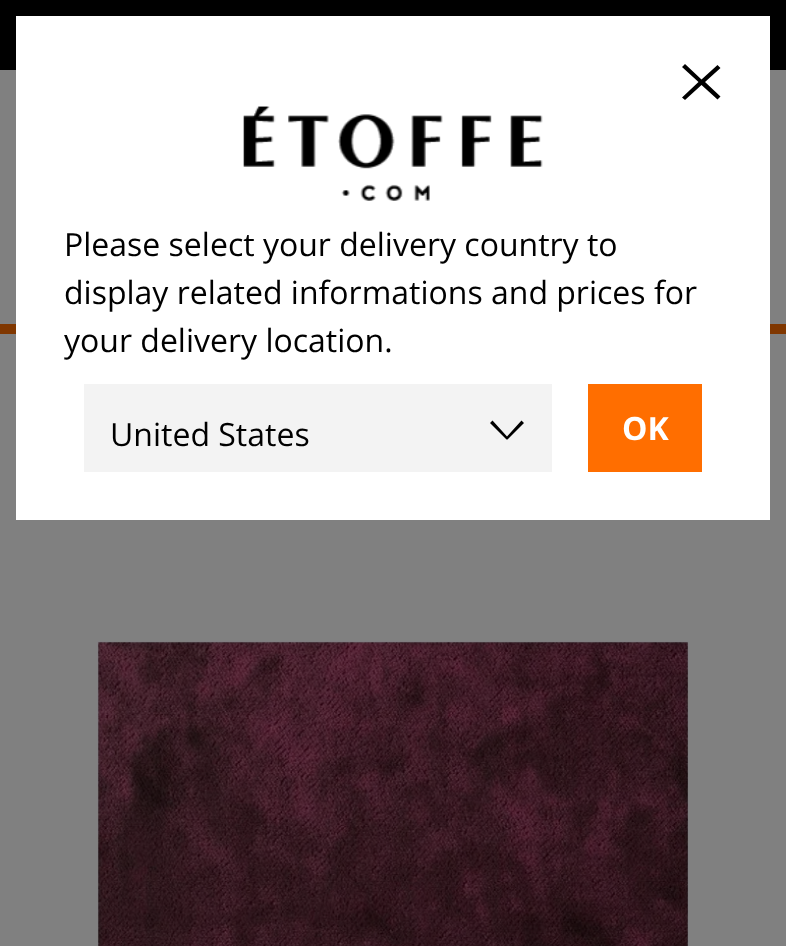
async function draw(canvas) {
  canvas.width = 786;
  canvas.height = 946;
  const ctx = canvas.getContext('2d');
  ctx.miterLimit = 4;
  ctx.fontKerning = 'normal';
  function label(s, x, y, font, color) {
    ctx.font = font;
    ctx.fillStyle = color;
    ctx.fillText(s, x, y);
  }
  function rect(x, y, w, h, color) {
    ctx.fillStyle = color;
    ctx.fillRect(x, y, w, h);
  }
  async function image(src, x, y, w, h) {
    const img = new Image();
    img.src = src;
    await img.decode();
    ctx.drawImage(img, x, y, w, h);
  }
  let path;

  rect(0, 0, 786, 946, '#808080');
  rect(0, 0, 786, 70, '#000');
  rect(0, 324, 786, 10, '#803700');
  rect(16, 16, 754, 504, '#fff');
  ctx.fillStyle = '#000';
  path = new Path2D('M685 64L682 67L698.5 82L682 97.5L685 100L701.5 85L717.5 99.5L720.5 96.5L705 82L720.5 68L717.5 65L701.5 79.5Z');
  ctx.fill(path);
  await image('assets/img1.png', 243, 106, 300, 95);
  label('Please select your delivery country to', 64, 256, '32px Open Sans', '#000');
  label('display related informations and prices for', 64, 304, '32px Open Sans', '#000');
  label('your delivery location.', 64, 352, '32px Open Sans', '#000');
  rect(84, 384, 468, 88, '#f3f3f3');
  ctx.fillStyle = '#000';
  path = new Path2D('M507.5 439.5L524 423L521.5 420.5L507 436.5L492.5 420.5L490 423L506.5 439.5H507Z');
  ctx.fill(path, 'evenodd');
  label('United States', 110, 446, '32px Open Sans', '#000');
  ctx.fillStyle = '#ff6e00';
  ctx.beginPath();
  ctx.rect(589, 385, 112, 86);
  ctx.fill();
  ctx.strokeStyle = '#ff6e00';
  ctx.lineWidth = 2;
  ctx.stroke();
  label('OK', 622, 440, 'bold 32px Open Sans', '#fff');
  await image('assets/img2.png', 97, 641, 592, 305);
}

draw(document.querySelector('canvas'));
